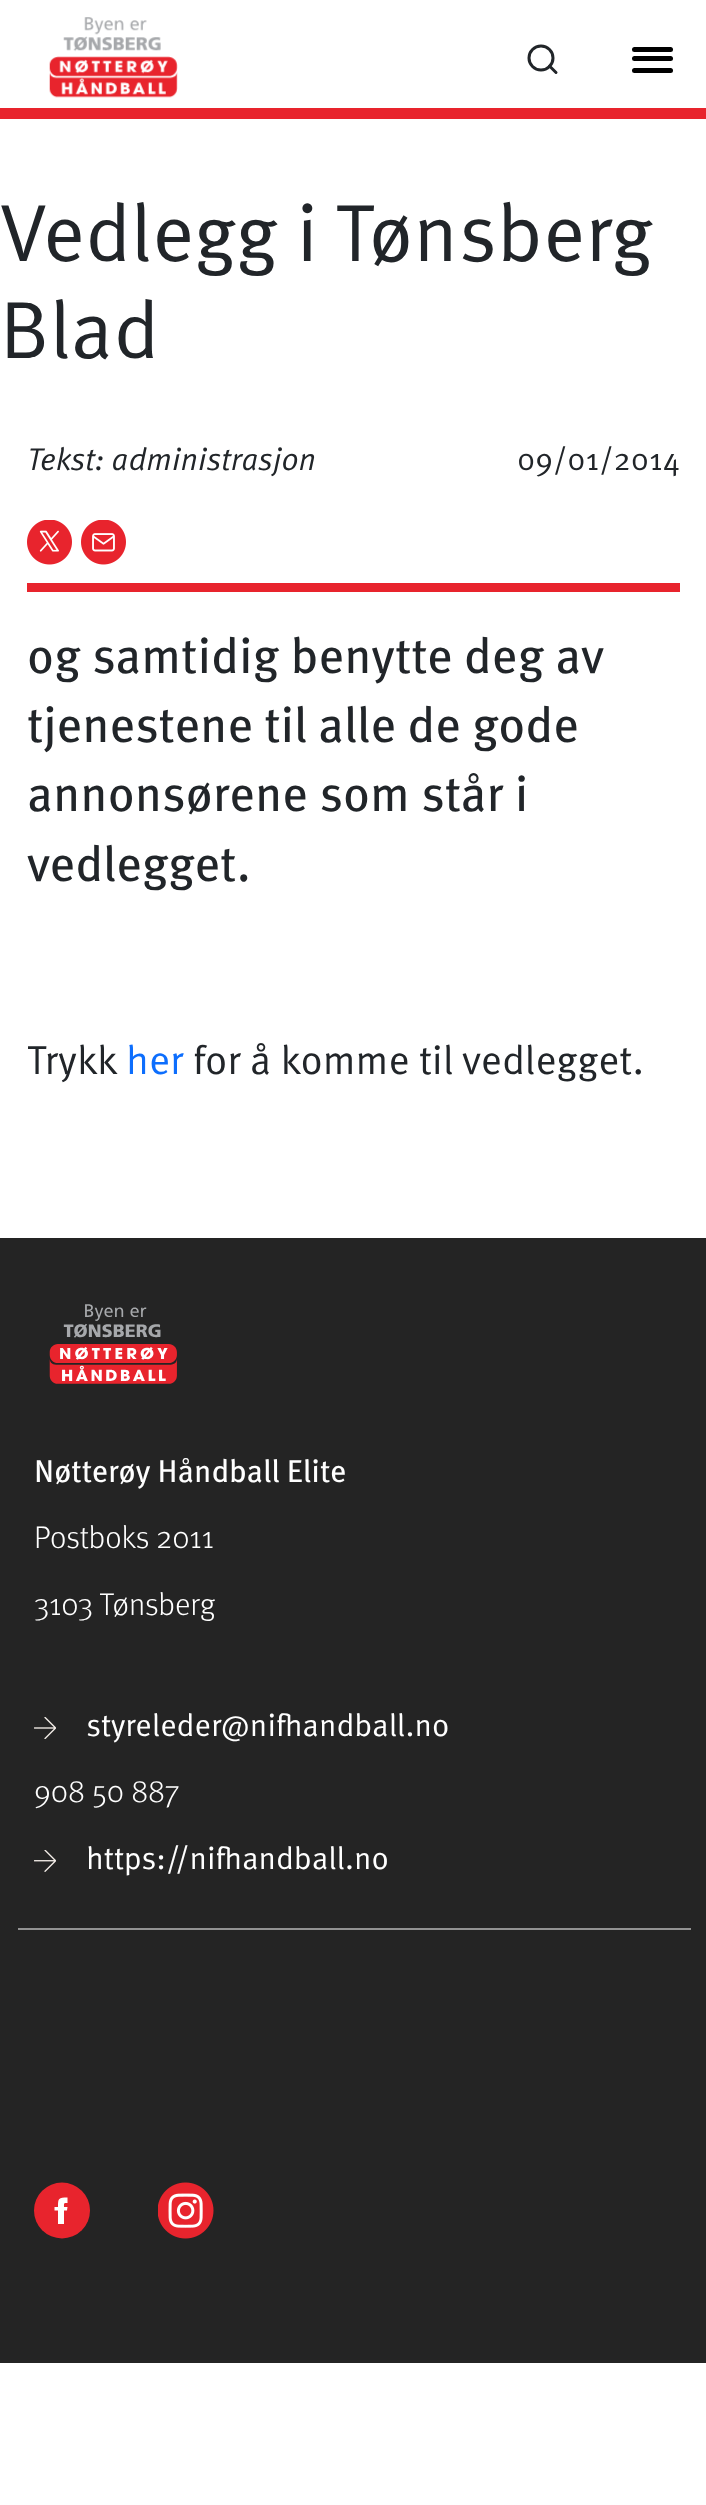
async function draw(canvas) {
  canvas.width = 706;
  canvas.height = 2505;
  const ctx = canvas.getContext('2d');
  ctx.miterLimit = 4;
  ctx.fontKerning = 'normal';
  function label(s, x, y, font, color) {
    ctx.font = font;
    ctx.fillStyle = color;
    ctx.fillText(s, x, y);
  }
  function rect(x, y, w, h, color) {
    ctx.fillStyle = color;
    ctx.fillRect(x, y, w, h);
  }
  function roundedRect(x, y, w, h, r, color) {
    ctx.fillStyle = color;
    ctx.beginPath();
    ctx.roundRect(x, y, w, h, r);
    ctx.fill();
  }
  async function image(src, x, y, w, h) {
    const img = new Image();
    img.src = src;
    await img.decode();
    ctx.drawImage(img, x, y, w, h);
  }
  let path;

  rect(0, 0, 706, 2505, '#fff');
  await image('assets/img1.png', 49, 17, 129, 81);
  ctx.beginPath();
  ctx.arc(541, 58, 12, 0, 2 * Math.PI);
  ctx.strokeStyle = '#212529';
  ctx.lineWidth = 3;
  ctx.stroke();
  path = new Path2D('M556 72.5L549.5 66');
  ctx.lineCap = 'round';
  ctx.lineJoin = 'round';
  ctx.stroke(path);
  roundedRect(632, 47, 41, 5, 2.5, '#000');
  roundedRect(632, 56, 41, 5, 2.5, '#000');
  roundedRect(632, 68, 41, 5, 2.5, '#000');
  rect(0, 108, 706, 11, '#e8242d');
  label('Vedlegg i Tønsberg', 0, 261, '81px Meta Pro', '#212529');
  label('Blad', 0, 358, '81px Meta Pro', '#212529');
  label('Tekst: administrasjon', 27, 470, 'italic 31.5px Meta Pro', '#212529');
  label('09/01/2014', 517, 470, '31.5px Meta Pro', '#212529');
  await image('assets/img2.png', 27, 520, 45, 45);
  await image('assets/img3.png', 81, 520, 45, 45);
  rect(27, 583, 653, 9, '#e8242d');
  label('og samtidig benytte deg av', 27, 673, '49.5px "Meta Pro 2"', '#212529');
  label('tjenestene til alle de gode', 27, 742, '49.5px "Meta Pro 2"', '#212529');
  label('annonsørene som står i', 27, 811, '49.5px "Meta Pro 2"', '#212529');
  label('vedlegget.', 27, 881, '49.5px "Meta Pro 2"', '#212529');
  label('Trykk', 27, 1074, '40.5px Meta Pro', '#212529');
  label('her', 126, 1074, '40.5px Meta Pro', '#0d6efd');
  label('for å komme til vedlegget.', 193, 1074, '40.5px Meta Pro', '#212529');
  rect(0, 1238, 706, 1125, '#242424');
  rect(18, 1928, 673, 2, '#929292');
  await image('assets/img4.png', 49, 1304, 128, 80);
  label('Nøtterøy Håndball Elite', 34, 1482, '31.5px "Meta Pro 2"', '#fff');
  label('Postboks 2011', 34, 1548, '300 31.5px Meta Pro', '#fff');
  label('3103 Tønsberg', 34, 1615, '300 31.5px Meta Pro', '#fff');
  await image('assets/img5.png', 34, 1717, 22, 22);
  label('styreleder@nifhandball.no', 86, 1736, '31.5px Meta Pro', '#fff');
  label('908 50 887', 34, 1802, '300 31.5px Meta Pro', '#fff');
  await image('assets/img6.png', 34, 1850, 22, 22);
  label('https://nifhandball.no', 86, 1869, '31.5px Meta Pro', '#fff');
  ctx.fillStyle = '#e8242d';
  ctx.beginPath();
  ctx.arc(62, 2210.5, 28, 0, 2 * Math.PI);
  ctx.fill();
  ctx.fillStyle = '#fff';
  path = new Path2D('M67.5 2203C63.5 2203 64 2203 64 2207H67.5L67 2210.5H64V2224H58V2210.5H54.5V2207H58C58 2198 58.5 2197.5 67.5 2197.5Z');
  ctx.fill(path);
  await image('assets/img7.png', 158, 2182, 56, 57);
}

draw(document.querySelector('canvas'));
